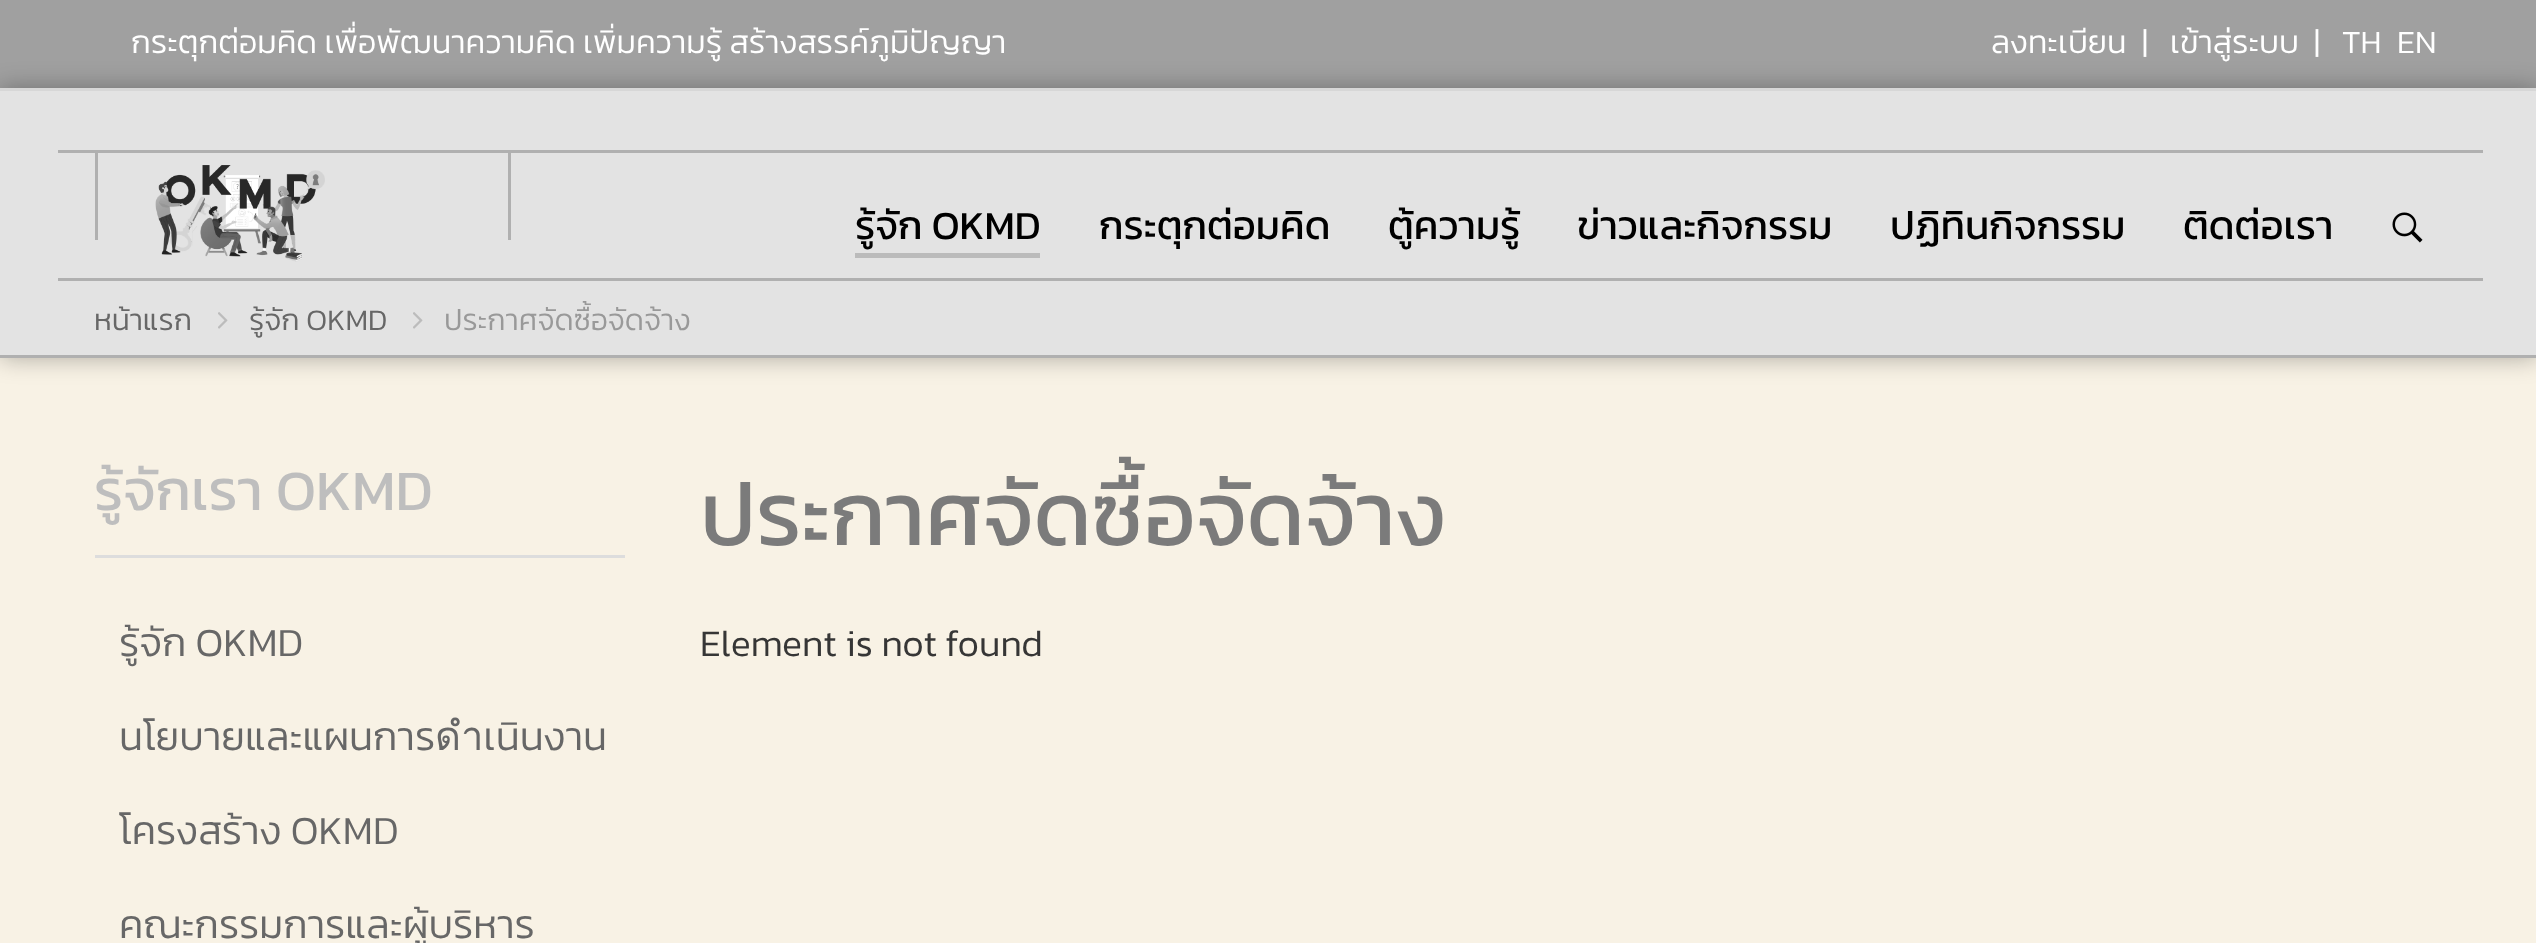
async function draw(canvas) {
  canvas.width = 2536;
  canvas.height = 943;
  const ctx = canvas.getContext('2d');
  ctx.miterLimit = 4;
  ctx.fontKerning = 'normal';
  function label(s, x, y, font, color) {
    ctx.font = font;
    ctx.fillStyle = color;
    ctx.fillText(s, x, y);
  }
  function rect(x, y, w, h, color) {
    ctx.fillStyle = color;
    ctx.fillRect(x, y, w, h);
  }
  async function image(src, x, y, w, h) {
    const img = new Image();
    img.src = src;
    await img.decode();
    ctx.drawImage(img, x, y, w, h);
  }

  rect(0, 0, 2536, 943, '#f8f2e5');
  rect(0, 0, 2536, 88, '#a0a0a0');
  label('กระตุกต่อมคิด เพื่อพัฒนาความคิด เพิ่มความรู้ สร้างสรรค์ภูมิปัญญา', 131, 53, '300 32.5px Kanit', '#fff');
  label('ลงทะเบียน', 1991, 53, '300 32.5px Kanit', '#fff');
  label('|', 2142, 53, '300 32.5px Kanit', '#fff');
  label('เข้าสู่ระบบ', 2170, 53, '300 32.5px Kanit', '#fff');
  label('|', 2314, 53, '300 32.5px Kanit', '#fff');
  label('TH', 2342, 53, '300 32.5px Kanit', '#fff');
  label('EN', 2397, 53, '300 32.5px Kanit', '#fff');
  ctx.fillStyle = '#0000004d';
  ctx.filter = 'blur(12.5px)';
  ctx.beginPath();
  ctx.rect(0, 88, 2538, 270);
  ctx.fill();
  ctx.filter = 'none';
  rect(0, 91, 2536, 264, '#e3e3e3');
  rect(0, 88, 2536, 3, '#d7d7d7');
  rect(0, 355, 2536, 3, '#b0b0b0');
  rect(58, 150, 2425, 3, '#b0b0b0');
  rect(58, 278, 2425, 3, '#b0b0b0');
  rect(95, 153, 3, 87, '#b0b0b0');
  await image('assets/img1.png', 155, 165, 170, 97);
  rect(508, 153, 3, 87, '#b0b0b0');
  label('รู้จัก OKMD', 855, 239, '40px Kanit', '#000');
  rect(855, 253, 185, 5, '#bbb');
  label('กระตุกต่อมคิด', 1099, 239, '40px Kanit', '#000');
  label('ตู้ความรู้', 1388, 239, '40px Kanit', '#000');
  label('ข่าวและกิจกรรม', 1577, 239, '40px Kanit', '#000');
  label('ปฏิทินกิจกรรม', 1890, 239, '40px Kanit', '#000');
  label('ติดต่อเรา', 2183, 239, '40px Kanit', '#000');
  await image('assets/img2.png', 2392, 212, 31, 31);
  label('หน้าแรก', 94, 330, '300 30px Kanit', '#676767');
  await image('assets/img3.png', 218, 312, 10, 17);
  label('รู้จัก OKMD', 249, 330, '300 30px Kanit', '#676767');
  await image('assets/img3.png', 413, 312, 10, 17);
  label('ประกาศจัดซื้อจัดจ้าง', 444, 330, '300 30px Kanit', '#999');
  rect(95, 555, 530, 3, '#ddd');
  label('รู้จักเรา OKMD', 94, 510, '57.5px Kanit', '#bebebe');
  label('รู้จัก OKMD', 119, 656, '300 40px Kanit', '#676767');
  label('นโยบายและแผนการดำเนินงาน', 119, 750, '300 40px Kanit', '#676767');
  label('โครงสร้าง OKMD', 119, 844, '300 40px Kanit', '#676767');
  label('คณะกรรมการและผู้บริหาร', 119, 938, '300 40px Kanit', '#676767');
  label('ประกาศจัดซื้อจัดจ้าง', 700, 545, '90px Kanit', '#7b7b7b');
  label('Element is not found', 700, 656, '300 37.5px Kanit', '#363636');
}

draw(document.querySelector('canvas'));
